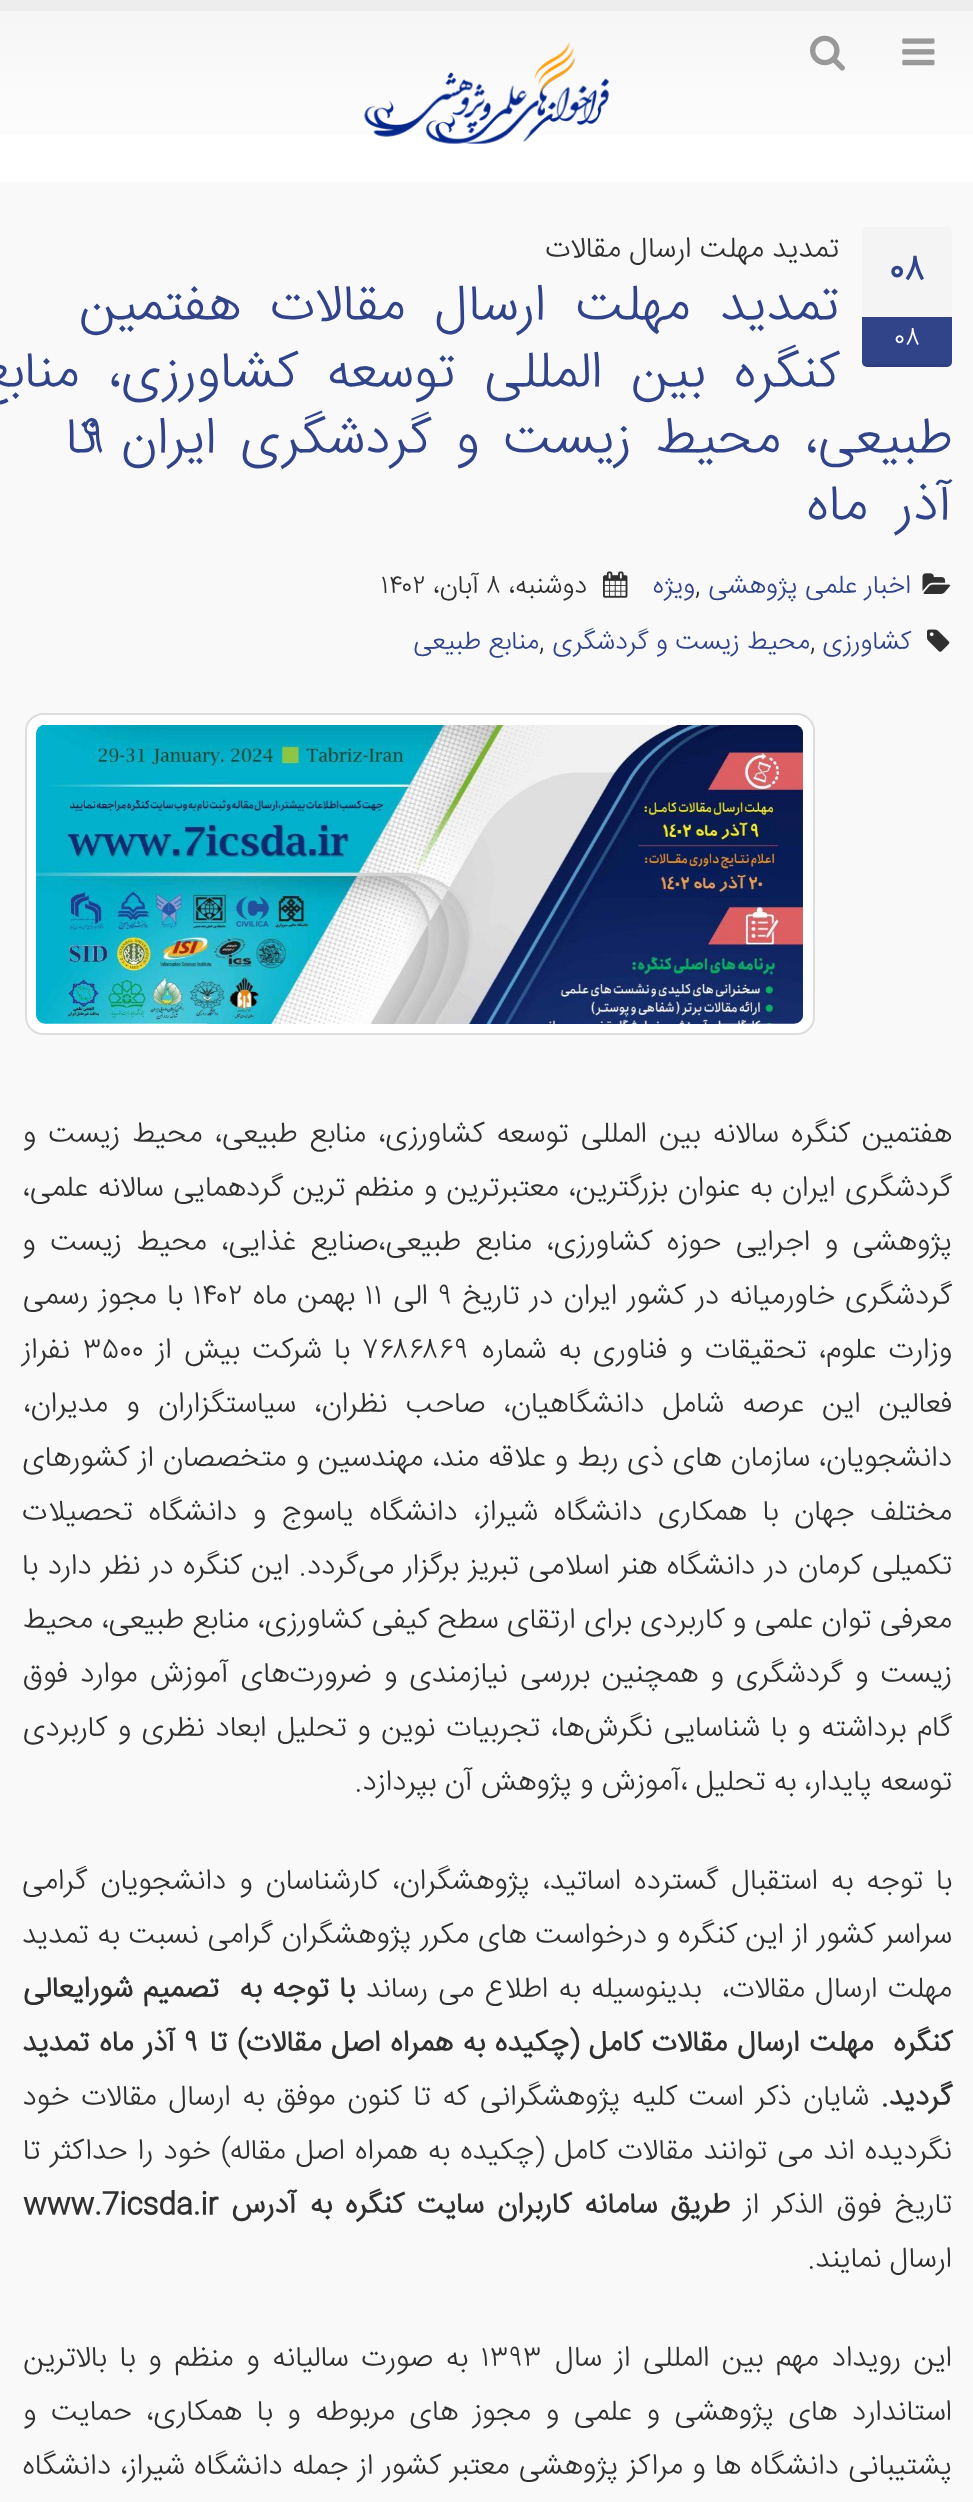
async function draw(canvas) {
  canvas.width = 973;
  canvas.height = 2502;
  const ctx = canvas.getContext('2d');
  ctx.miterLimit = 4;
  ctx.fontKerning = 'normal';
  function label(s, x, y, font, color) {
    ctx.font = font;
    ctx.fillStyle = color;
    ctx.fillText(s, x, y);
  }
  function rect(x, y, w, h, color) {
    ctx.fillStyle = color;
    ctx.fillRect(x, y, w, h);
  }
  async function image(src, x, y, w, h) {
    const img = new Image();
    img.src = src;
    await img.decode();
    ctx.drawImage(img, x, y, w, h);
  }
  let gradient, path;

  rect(0, 0, 973, 2502, '#fff');
  gradient = ctx.createLinearGradient(487, 11, 487, 182);
  gradient.addColorStop(0, '#f6f6f6');
  gradient.addColorStop(1, '#fff');
  ctx.fillStyle = gradient;
  ctx.fillRect(0, 11, 973, 124);
  rect(0, 0, 973, 11, '#ededed');
  await image('assets/img1.png', 902, 38, 33, 28);
  await image('assets/img2.png', 810, 35, 35, 36);
  await image('assets/img3.png', 364, 42, 245, 102);
  rect(0, 182, 973, 2320, '#f9f9f9');
  ctx.direction = 'rtl';
  label('تمدید مهلت ارسال مقالات', 839, 257, '300 29.25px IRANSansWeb', '#303030');
  ctx.letterSpacing = '-2.25px';
  ctx.wordSpacing = '17px';
  label('تمدید مهلت ارسال مقالات هفتمین', 839, 320, '300 52.25px IRANSansWeb', '#314489');
  ctx.wordSpacing = '16.5px';
  label('کنگره بین المللی توسعه کشاورزی، منابع', 839, 387, '300 52.25px IRANSansWeb', '#314489');
  ctx.wordSpacing = '11.5px';
  label('طبیعی، محیط زیست و گردشگری ایران تا', 952, 453, '300 52.25px IRANSansWeb', '#314489');
  ctx.wordSpacing = '0px';
  ctx.direction = 'ltr';
  label('۹', 81, 453, '300 52.25px IRANSansWeb', '#314489');
  ctx.wordSpacing = '16px';
  ctx.direction = 'rtl';
  label('آذر ماه', 952, 520, '300 52.25px IRANSansWeb', '#314489');
  await image('assets/img4.png', 922, 573, 29, 21);
  ctx.letterSpacing = '0px';
  ctx.wordSpacing = '0px';
  label('اخبار علمی پژوهشی', 911, 593, '300 26.25px IRANSansWeb', '#314489');
  ctx.direction = 'ltr';
  label(',', 695, 593, '300 26.25px IRANSansWeb', '#303030');
  ctx.direction = 'rtl';
  label('ویژه', 695, 593, '300 26.25px IRANSansWeb', '#314489');
  await image('assets/img5.png', 603, 571, 25, 27);
  label('دوشنبه،', 587, 593, '300 26.25px IRANSansWeb', '#303030');
  ctx.direction = 'ltr';
  label('۸', 486, 593, '300 26.25px IRANSansWeb', '#303030');
  ctx.direction = 'rtl';
  label('آبان،', 479, 593, '300 26.25px IRANSansWeb', '#303030');
  ctx.direction = 'ltr';
  label('۱۴۰۲', 381, 593, '300 26.25px IRANSansWeb', '#303030');
  await image('assets/img6.png', 927, 629, 23, 23);
  ctx.direction = 'rtl';
  label('کشاورزی', 911, 649, '300 26.25px IRANSansWeb', '#314489');
  ctx.direction = 'ltr';
  label(',', 810, 649, '300 26.25px IRANSansWeb', '#303030');
  ctx.direction = 'rtl';
  label('محیط زیست و گردشگری', 810, 649, '300 26.25px IRANSansWeb', '#314489');
  ctx.direction = 'ltr';
  label(',', 539, 649, '300 26.25px IRANSansWeb', '#303030');
  ctx.direction = 'rtl';
  label('منابع طبیعی', 539, 649, '300 26.25px IRANSansWeb', '#314489');
  ctx.fillStyle = '#fff';
  ctx.beginPath();
  ctx.roundRect(26, 714, 788, 320, 17);
  ctx.fill();
  ctx.strokeStyle = '#ddd';
  ctx.lineWidth = 2;
  ctx.stroke();
  await image('assets/img7.png', 36, 725, 767, 299);
  ctx.wordSpacing = '4px';
  label('هفتمین کنگره سالانه بین المللی توسعه کشاورزی، منابع طبیعی، محیط زیست و', 952, 1142, '300 29.25px IRANSansWeb', '#303030');
  ctx.wordSpacing = '1.5px';
  label('گردشگری ایران به عنوان بزرگترین، معتبرترین و منظم ترین گردهمایی سالانه علمی،', 952, 1196, '300 29.25px IRANSansWeb', '#303030');
  ctx.wordSpacing = '6.25px';
  label('پژوهشی و اجرایی حوزه کشاورزی، منابع طبیعی،صنایع غذایی، محیط زیست و', 952, 1250, '300 29.25px IRANSansWeb', '#303030');
  ctx.wordSpacing = '2px';
  label('گردشگری خاورمیانه در کشور ایران در تاریخ', 952, 1304, '300 29.25px IRANSansWeb', '#303030');
  ctx.wordSpacing = '0px';
  ctx.direction = 'ltr';
  label('۹', 438, 1304, '300 29.25px IRANSansWeb', '#303030');
  ctx.direction = 'rtl';
  label('الی', 428, 1304, '300 29.25px IRANSansWeb', '#303030');
  ctx.direction = 'ltr';
  label('۱۱', 365, 1304, '300 29.25px IRANSansWeb', '#303030');
  ctx.wordSpacing = '2px';
  ctx.direction = 'rtl';
  label('بهمن ماه', 355, 1304, '300 29.25px IRANSansWeb', '#303030');
  ctx.wordSpacing = '0px';
  ctx.direction = 'ltr';
  label('۱۴۰۲', 193, 1304, '300 29.25px IRANSansWeb', '#303030');
  ctx.wordSpacing = '2px';
  ctx.direction = 'rtl';
  label('با مجوز رسمی', 183, 1304, '300 29.25px IRANSansWeb', '#303030');
  ctx.wordSpacing = '4px';
  label('وزارت علوم، تحقیقات و فناوری به شماره', 952, 1358, '300 29.25px IRANSansWeb', '#303030');
  ctx.wordSpacing = '0px';
  ctx.direction = 'ltr';
  label('۷۶۸۶۸۶۹', 362, 1358, '300 29.25px IRANSansWeb', '#303030');
  ctx.wordSpacing = '4px';
  ctx.direction = 'rtl';
  label('با شرکت بیش از', 350, 1358, '300 29.25px IRANSansWeb', '#303030');
  ctx.wordSpacing = '0px';
  ctx.direction = 'ltr';
  label('۳۵۰۰', 83, 1358, '300 29.25px IRANSansWeb', '#303030');
  ctx.direction = 'rtl';
  label('نفراز', 70, 1358, '300 29.25px IRANSansWeb', '#303030');
  ctx.wordSpacing = '10px';
  label('فعالین این عرصه شامل دانشگاهیان، صاحب نظران، سیاستگزاران و مدیران،', 952, 1412, '300 29.25px IRANSansWeb', '#303030');
  ctx.wordSpacing = '0.75px';
  label('دانشجویان، سازمان های ذی ربط و علاقه مند، مهندسین و متخصصان از کشورهای', 952, 1466, '300 29.25px IRANSansWeb', '#303030');
  ctx.wordSpacing = '7.5px';
  label('مختلف جهان با همکاری دانشگاه شیراز، دانشگاه یاسوج و دانشگاه تحصیلات', 952, 1520, '300 29.25px IRANSansWeb', '#303030');
  ctx.wordSpacing = '1.25px';
  label('تکمیلی کرمان در دانشگاه هنر اسلامی تبریز برگزار می‌گردد. این کنگره در نظر دارد با', 952, 1574, '300 29.25px IRANSansWeb', '#303030');
  ctx.wordSpacing = '0.25px';
  label('معرفی توان علمی و کاربردی برای ارتقای سطح کیفی کشاورزی، منابع طبیعی، محیط', 952, 1628, '300 29.25px IRANSansWeb', '#303030');
  ctx.wordSpacing = '3.9px';
  label('زیست و گردشگری و همچنین بررسی نیازمندی و ضرورت‌های آموزش موارد فوق', 952, 1682, '300 29.25px IRANSansWeb', '#303030');
  ctx.wordSpacing = '2.4px';
  label('گام برداشته و با شناسایی نگرش‌ها، تجربیات نوین و تحلیل ابعاد نظری و کاربردی', 952, 1736, '300 29.25px IRANSansWeb', '#303030');
  ctx.wordSpacing = '0px';
  label('توسعه پایدار، به تحلیل ،آموزش و پژوهش آن بپردازد.', 952, 1790, '300 29.25px IRANSansWeb', '#303030');
  ctx.wordSpacing = '4.75px';
  label('‌با توجه به استقبال گسترده اساتید، پژوهشگران، کارشناسان و دانشجویان گرامی', 952, 1889, '300 29.25px IRANSansWeb', '#303030');
  ctx.wordSpacing = '0.5px';
  label('سراسر کشور از این کنگره و درخواست های مکرر پژوهشگران گرامی نسبت به تمدید', 952, 1943, '300 29.25px IRANSansWeb', '#303030');
  ctx.wordSpacing = '2px';
  label('مهلت ارسال مقالات،  بدینوسیله به اطلاع می رساند', 952, 1997, '300 29.25px IRANSansWeb', '#303030');
  label('با توجه به  تصمیم شورایعالی', 355, 1997, 'bold 29.25px IRANSansWeb', '#303030');
  ctx.wordSpacing = '1.6px';
  label('کنگره  مهلت ارسال مقالات کامل (چکیده به همراه اصل مقالات) تا', 952, 2051, 'bold 29.25px IRANSansWeb', '#303030');
  ctx.wordSpacing = '0px';
  ctx.direction = 'ltr';
  label('۹', 184, 2051, 'bold 29.25px IRANSansWeb', '#303030');
  ctx.wordSpacing = '2px';
  ctx.direction = 'rtl';
  label('آذر ماه تمدید', 175, 2051, 'bold 29.25px IRANSansWeb', '#303030');
  ctx.wordSpacing = '0px';
  label('گردید', 952, 2105, 'bold 29.25px IRANSansWeb', '#303030');
  ctx.direction = 'ltr';
  label('.', 881, 2105, 'bold 29.25px IRANSansWeb', '#303030');
  ctx.wordSpacing = '3.4px';
  ctx.direction = 'rtl';
  label('شایان ذکر است کلیه پژوهشگرانی که تا کنون موفق به ارسال مقالات خود', 869, 2105, '300 29.25px IRANSansWeb', '#303030');
  ctx.wordSpacing = '1.9px';
  label('نگردیده اند می توانند مقالات کامل (چکیده به همراه اصل مقاله) خود را حداکثر تا', 952, 2159, '300 29.25px IRANSansWeb', '#303030');
  ctx.wordSpacing = '5px';
  label('تاریخ فوق الذکر از', 952, 2213, '300 29.25px IRANSansWeb', '#303030');
  label('طریق سامانه کاربران سایت کنگره', 730, 2213, 'bold 29.25px IRANSansWeb', '#303030');
  label('به آدرس', 332, 2213, 'bold 29.25px IRANSansWeb', '#303030');
  ctx.wordSpacing = '0px';
  ctx.direction = 'ltr';
  label('www.7icsda.ir', 23, 2213, 'bold 29.25px IRANSansWeb', '#303030');
  ctx.direction = 'rtl';
  label('ارسال نمایند.', 952, 2267, '300 29.25px IRANSansWeb', '#303030');
  ctx.wordSpacing = '4.5px';
  label('این رویداد مهم بین المللی از سال', 952, 2366, '300 29.25px IRANSansWeb', '#303030');
  ctx.wordSpacing = '0px';
  ctx.direction = 'ltr';
  label('۱۳۹۳', 481, 2366, '300 29.25px IRANSansWeb', '#303030');
  ctx.wordSpacing = '4.5px';
  ctx.direction = 'rtl';
  label('به صورت سالیانه و منظم و با بالاترین', 468, 2366, '300 29.25px IRANSansWeb', '#303030');
  ctx.wordSpacing = '6.4px';
  label('استاندارد های پژوهشی و علمی و مجوز های مربوطه و با همکاری، حمایت و', 952, 2420, '300 29.25px IRANSansWeb', '#303030');
  ctx.wordSpacing = '1px';
  label('پشتیبانی دانشگاه ها و مراکز پژوهشی معتبر کشور از جمله دانشگاه شیراز، دانشگاه', 952, 2474, '300 29.25px IRANSansWeb', '#303030');
  ctx.fillStyle = '#f4f4f4';
  ctx.beginPath();
  ctx.roundRect(862, 227, 90, 90, [5, 5, 0, 0]);
  ctx.fill();
  ctx.wordSpacing = '0px';
  ctx.direction = 'ltr';
  label('۰۸', 889, 280, 'bold 36px IRANSansWeb', '#314489');
  ctx.beginPath();
  ctx.roundRect(862, 317, 90, 50, [0, 0, 5, 5]);
  ctx.fill();
  ctx.fillStyle = '#00000012';
  path = new Path2D('M862 360C862 370 872 367 880 367H934C942 367 952 370 952 360C952 362 950 364 947 364H866C864 364 862 362 862 360Z');
  ctx.fill(path);
  label('۰۸', 894, 345, '300 26.25px IRANSansWeb', '#fff');
}

draw(document.querySelector('canvas'));
